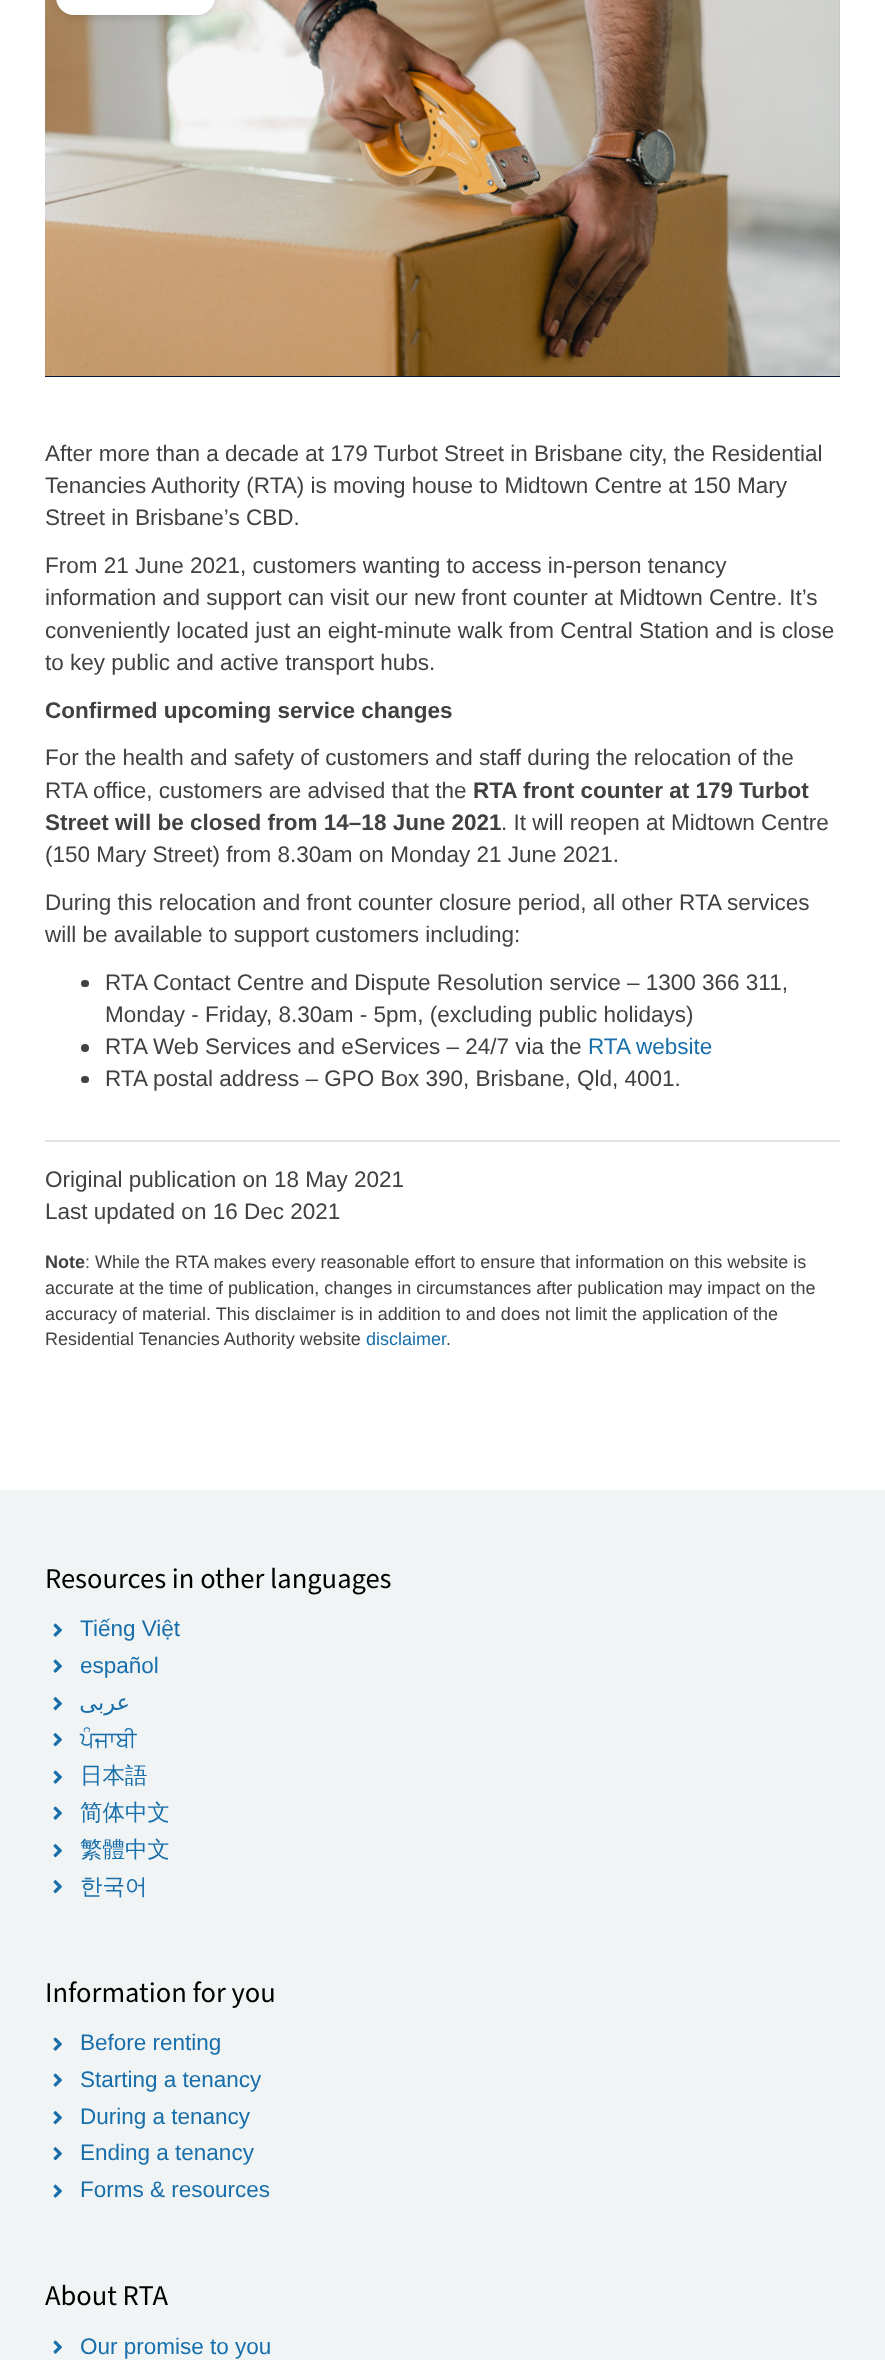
async function draw(canvas) {
  canvas.width = 885;
  canvas.height = 2360;
  const ctx = canvas.getContext('2d');
  ctx.miterLimit = 4;
  ctx.fontKerning = 'normal';
  function label(s, x, y, font, color) {
    ctx.font = font;
    ctx.fillStyle = color;
    ctx.fillText(s, x, y);
  }
  function rect(x, y, w, h, color) {
    ctx.fillStyle = color;
    ctx.fillRect(x, y, w, h);
  }
  function roundedRect(x, y, w, h, r, color) {
    ctx.fillStyle = color;
    ctx.beginPath();
    ctx.roundRect(x, y, w, h, r);
    ctx.fill();
  }
  async function image(src, x, y, w, h) {
    const img = new Image();
    img.src = src;
    await img.decode();
    ctx.drawImage(img, x, y, w, h);
  }

  rect(0, 0, 885, 2360, '#fff');
  rect(45, 0, 795, 377, '#001a36');
  await image('assets/img1.png', 45, 0, 795, 376);
  ctx.fillStyle = '#00000026';
  ctx.filter = 'blur(4px)';
  ctx.beginPath();
  ctx.roundRect(57, -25, 159, 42, 21);
  ctx.fill();
  ctx.filter = 'none';
  roundedRect(56, -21, 159, 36, 21, '#fff');
  label('After more than a decade at 179 Turbot Street in Brisbane city, the Residential', 45, 461, '22.5px Liberation Sans', '#3f4142');
  label('Tenancies Authority (RTA) is moving house to Midtown Centre at 150 Mary', 45, 493, '22.5px Liberation Sans', '#3f4142');
  label('Street in Brisbane’s CBD.', 45, 525, '22.5px Liberation Sans', '#3f4142');
  label('From 21 June 2021, customers wanting to access in-person tenancy', 45, 573, '22.5px Liberation Sans', '#3f4142');
  label('information and support can visit our new front counter at Midtown Centre. It’s', 45, 605, '22.5px Liberation Sans', '#3f4142');
  label('conveniently located just an eight-minute walk from Central Station and is close', 45, 638, '22.5px Liberation Sans', '#3f4142');
  label('to key public and active transport hubs.', 45, 670, '22.5px Liberation Sans', '#3f4142');
  label('Confirmed upcoming service changes', 45, 718, 'bold 22.5px Liberation Sans', '#3f4142');
  label('For the health and safety of customers and staff during the relocation of the', 45, 765, '22.5px Liberation Sans', '#3f4142');
  label('RTA office, customers are advised that the', 45, 798, '22.5px Liberation Sans', '#3f4142');
  label('RTA front counter at 179 Turbot', 473, 798, 'bold 22.5px Liberation Sans', '#3f4142');
  label('Street will be closed from 14–18 June 2021', 45, 830, 'bold 22.5px Liberation Sans', '#3f4142');
  label('. It will reopen at Midtown Centre', 501, 830, '22.5px Liberation Sans', '#3f4142');
  label('(150 Mary Street) from 8.30am on Monday 21 June 2021.', 45, 862, '22.5px Liberation Sans', '#3f4142');
  label('During this relocation and front counter closure period, all other RTA services', 45, 910, '22.5px Liberation Sans', '#3f4142');
  label('will be available to support customers including:', 45, 942, '22.5px Liberation Sans', '#3f4142');
  roundedRect(81, 980, 8, 7, 3.5, '#3f4142');
  label('RTA Contact Centre and Dispute Resolution service – 1300 366 311,', 105, 990, '22.5px Liberation Sans', '#3f4142');
  label('Monday - Friday, 8.30am - 5pm, (excluding public holidays)', 105, 1022, '22.5px Liberation Sans', '#3f4142');
  ctx.beginPath();
  ctx.arc(85, 1048, 4, 0, 2 * Math.PI);
  ctx.fill();
  label('RTA Web Services and eServices – 24/7 via the', 105, 1054, '22.5px Liberation Sans', '#3f4142');
  label('RTA website', 588, 1054, '22.5px Liberation Sans', '#176eaa');
  roundedRect(81, 1076, 8, 7, 3.5, '#3f4142');
  label('RTA postal address – GPO Box 390, Brisbane, Qld, 4001.', 105, 1086, '22.5px Liberation Sans', '#3f4142');
  rect(45, 1140, 795, 2, '#e3e3e3');
  label('Original publication on 18 May 2021', 45, 1187, '22.5px Liberation Sans', '#3f4142');
  label('Last updated on 16 Dec 2021', 45, 1219, '22.5px Liberation Sans', '#3f4142');
  label('Note', 45, 1268, 'bold 18px Liberation Sans', '#3f4142');
  label(': While the RTA makes every reasonable effort to ensure that information on this website is', 85, 1268, '18px Liberation Sans', '#3f4142');
  label('accurate at the time of publication, changes in circumstances after publication may impact on the', 45, 1294, '18px Liberation Sans', '#3f4142');
  label('accuracy of material. This disclaimer is in addition to and does not limit the application of the', 45, 1320, '18px Liberation Sans', '#3f4142');
  label('Residential Tenancies Authority website', 45, 1345, '18px Liberation Sans', '#3f4142');
  label('disclaimer', 366, 1345, '18px Liberation Sans', '#176eaa');
  label('.', 446, 1345, '18px Liberation Sans', '#3f4142');
  rect(0, 1490, 885, 870, '#f0f4f5');
  label('Resources in other languages', 45, 1588, '28.5px Source Sans Pro', '#000');
  await image('assets/img2.png', 53, 1623, 9, 14);
  label('Tiếng Việt', 80, 1636, '22.5px Liberation Sans', '#176eaa');
  await image('assets/img2.png', 53, 1659, 9, 14);
  label('español', 80, 1673, '22.5px Liberation Sans', '#176eaa');
  await image('assets/img3.png', 53, 1697, 9, 14);
  ctx.direction = 'rtl';
  label('عربى', 130, 1710, '22.5px DejaVu Sans', '#176eaa');
  await image('assets/img3.png', 53, 1733, 9, 14);
  ctx.direction = 'ltr';
  label('ਪੰਜਾਬੀ', 80, 1747, '22.5px FreeSans', '#176eaa');
  await image('assets/img2.png', 53, 1770, 9, 14);
  label('日本語', 80, 1783, '500 22.5px WenQuanYi Zen Hei', '#176eaa');
  await image('assets/img2.png', 53, 1806, 9, 14);
  label('简体中文', 80, 1820, '500 22.5px WenQuanYi Zen Hei', '#176eaa');
  await image('assets/img3.png', 53, 1844, 9, 14);
  label('繁體中文', 80, 1857, '500 22.5px WenQuanYi Zen Hei', '#176eaa');
  await image('assets/img3.png', 53, 1880, 9, 14);
  label('한국어', 80, 1894, '500 22.5px WenQuanYi Zen Hei', '#176eaa');
  label('Information for you', 45, 2002, '28.5px Source Sans Pro', '#000');
  await image('assets/img2.png', 53, 2037, 9, 14);
  label('Before renting', 80, 2050, '22.5px Liberation Sans', '#176eaa');
  await image('assets/img2.png', 53, 2073, 9, 14);
  label('Starting a tenancy', 80, 2087, '22.5px Liberation Sans', '#176eaa');
  await image('assets/img3.png', 53, 2111, 9, 14);
  label('During a tenancy', 80, 2124, '22.5px Liberation Sans', '#176eaa');
  await image('assets/img3.png', 53, 2147, 9, 14);
  label('Ending a tenancy', 80, 2160, '22.5px Liberation Sans', '#176eaa');
  await image('assets/img2.png', 53, 2184, 9, 14);
  label('Forms & resources', 80, 2197, '22.5px Liberation Sans', '#176eaa');
  label('About RTA', 45, 2305, '28.5px Source Sans Pro', '#000');
  await image('assets/img2.png', 53, 2340, 9, 14);
  label('Our promise to you', 80, 2354, '22.5px Liberation Sans', '#176eaa');
}

draw(document.querySelector('canvas'));
